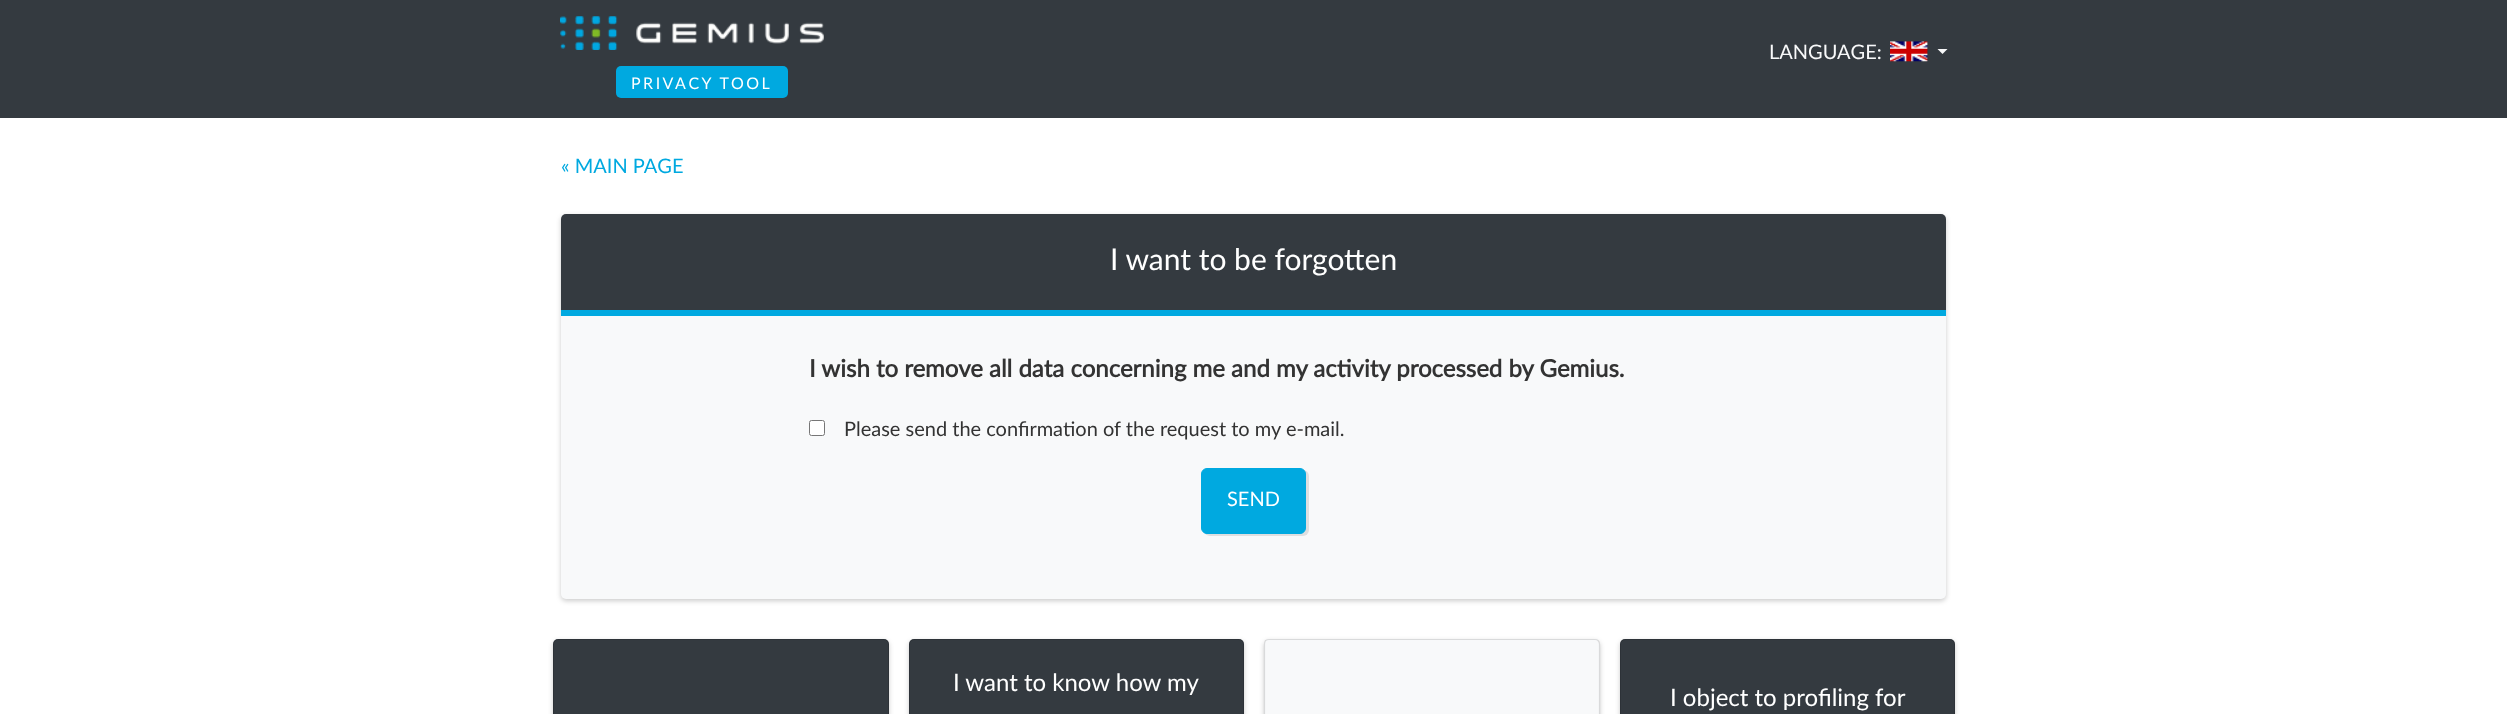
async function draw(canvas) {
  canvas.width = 2507;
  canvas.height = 714;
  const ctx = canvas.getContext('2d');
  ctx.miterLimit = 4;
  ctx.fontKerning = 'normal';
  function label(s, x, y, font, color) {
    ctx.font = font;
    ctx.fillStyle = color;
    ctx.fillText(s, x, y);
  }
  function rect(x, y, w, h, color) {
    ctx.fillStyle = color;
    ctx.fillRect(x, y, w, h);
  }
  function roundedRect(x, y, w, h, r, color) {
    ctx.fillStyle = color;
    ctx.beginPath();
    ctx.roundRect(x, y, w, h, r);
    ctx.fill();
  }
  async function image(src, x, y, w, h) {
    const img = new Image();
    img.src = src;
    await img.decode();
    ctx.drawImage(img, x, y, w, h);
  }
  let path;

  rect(0, 0, 2507, 714, '#fff');
  rect(0, 0, 2507, 118, '#343a40');
  label('LANGUAGE:', 1769, 59, '20px Lato', '#f8f9fa');
  await image('assets/img1.png', 1890, 41, 38, 21);
  path = new Path2D('M1937.5 49H1947.5L1942.5 54Z');
  ctx.fill(path);
  await image('assets/img2.png', 560, 16, 264, 34);
  roundedRect(616, 66, 172, 32, 5, '#00a9e0');
  ctx.letterSpacing = '2.5px';
  label('PRIVACY TOOL', 631, 89, '16px Lato', '#fff');
  ctx.letterSpacing = '0px';
  label('« MAIN PAGE', 561, 173, '20px Lato', '#00a9e0');
  ctx.fillStyle = '#00000033';
  ctx.filter = 'blur(2.5px)';
  ctx.beginPath();
  ctx.roundRect(561, 216, 1385, 385, 5);
  ctx.fill();
  ctx.filter = 'none';
  roundedRect(561, 214, 1385, 385, 5, '#f8f9fa');
  ctx.fillStyle = '#343a40';
  ctx.beginPath();
  ctx.roundRect(561, 214, 1385, 102, [5, 5, 0, 0]);
  ctx.fill();
  rect(561, 310, 1385, 6, '#00a9e0');
  label('I want to be forgotten', 1110, 270, '30px Lato', '#fff');
  label('I wish to remove all data concerning me and my activity processed by Gemius.', 809, 377, 'bold 24px Lato', '#333');
  ctx.fillStyle = '#fff';
  ctx.beginPath();
  ctx.roundRect(809.5, 420.5, 15, 15, 2);
  ctx.fill();
  ctx.strokeStyle = '#767676';
  ctx.stroke();
  label('Please send the confirmation of the request to my e-mail.', 844, 436, '20px Lato', '#333');
  ctx.fillStyle = '#0000001a';
  ctx.filter = 'blur(0.5px)';
  ctx.beginPath();
  ctx.roundRect(1204, 470, 105, 66, 6);
  ctx.fill();
  ctx.filter = 'none';
  ctx.fillStyle = '#00a9e0';
  ctx.beginPath();
  ctx.roundRect(1201.5, 468.5, 104, 65, 5.5);
  ctx.fill();
  ctx.strokeStyle = '#00a9e0';
  ctx.stroke();
  label('SEND', 1227, 506, '20px Lato', '#fff');
  ctx.fillStyle = '#00000033';
  ctx.filter = 'blur(2.5px)';
  ctx.beginPath();
  ctx.roundRect(553, 641, 336, 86, 5);
  ctx.fill();
  ctx.filter = 'none';
  roundedRect(553, 639, 336, 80, 5, '#343a40');
  ctx.beginPath();
  ctx.roundRect(553.5, 639.5, 335, 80, 4.5);
  ctx.strokeStyle = '#0000001f';
  ctx.stroke();
  ctx.fillStyle = '#00000033';
  ctx.filter = 'blur(2.5px)';
  ctx.beginPath();
  ctx.roundRect(909, 641, 335, 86, 5);
  ctx.fill();
  ctx.filter = 'none';
  roundedRect(909, 639, 335, 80, 5, '#343a40');
  ctx.beginPath();
  ctx.roundRect(909.5, 639.5, 334, 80, 4.5);
  ctx.stroke();
  label('I want to know how my', 953, 691, '24px Lato', '#fff');
  ctx.fillStyle = '#00000033';
  ctx.filter = 'blur(2.5px)';
  ctx.beginPath();
  ctx.roundRect(1264, 641, 336, 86, 5);
  ctx.fill();
  ctx.filter = 'none';
  roundedRect(1264, 639, 336, 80, 5, '#f8f9fa');
  path = new Path2D('M1265.5 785.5C1265 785 1264.5 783.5 1264.5 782.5V644C1264.5 642.5 1265 641.5 1265.5 640.5C1266.5 640 1267.5 639.5 1269 639.5H1595C1596 639.5 1597.5 640 1598 640.5C1599 641.5 1599.5 642.5 1599.5 644V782.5C1599.5 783.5 1599 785 1598 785.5');
  ctx.lineWidth = 1.2;
  ctx.stroke(path);
  ctx.fillStyle = '#00000033';
  ctx.filter = 'blur(2.5px)';
  ctx.beginPath();
  ctx.roundRect(1620, 641, 335, 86, 5);
  ctx.fill();
  ctx.filter = 'none';
  roundedRect(1620, 639, 335, 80, 5, '#343a40');
  ctx.beginPath();
  ctx.roundRect(1620.5, 639.5, 334, 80, 4.5);
  ctx.lineWidth = 1;
  ctx.stroke();
  label('I object to profiling for', 1670, 706, '24px Lato', '#fff');
}

draw(document.querySelector('canvas'));
